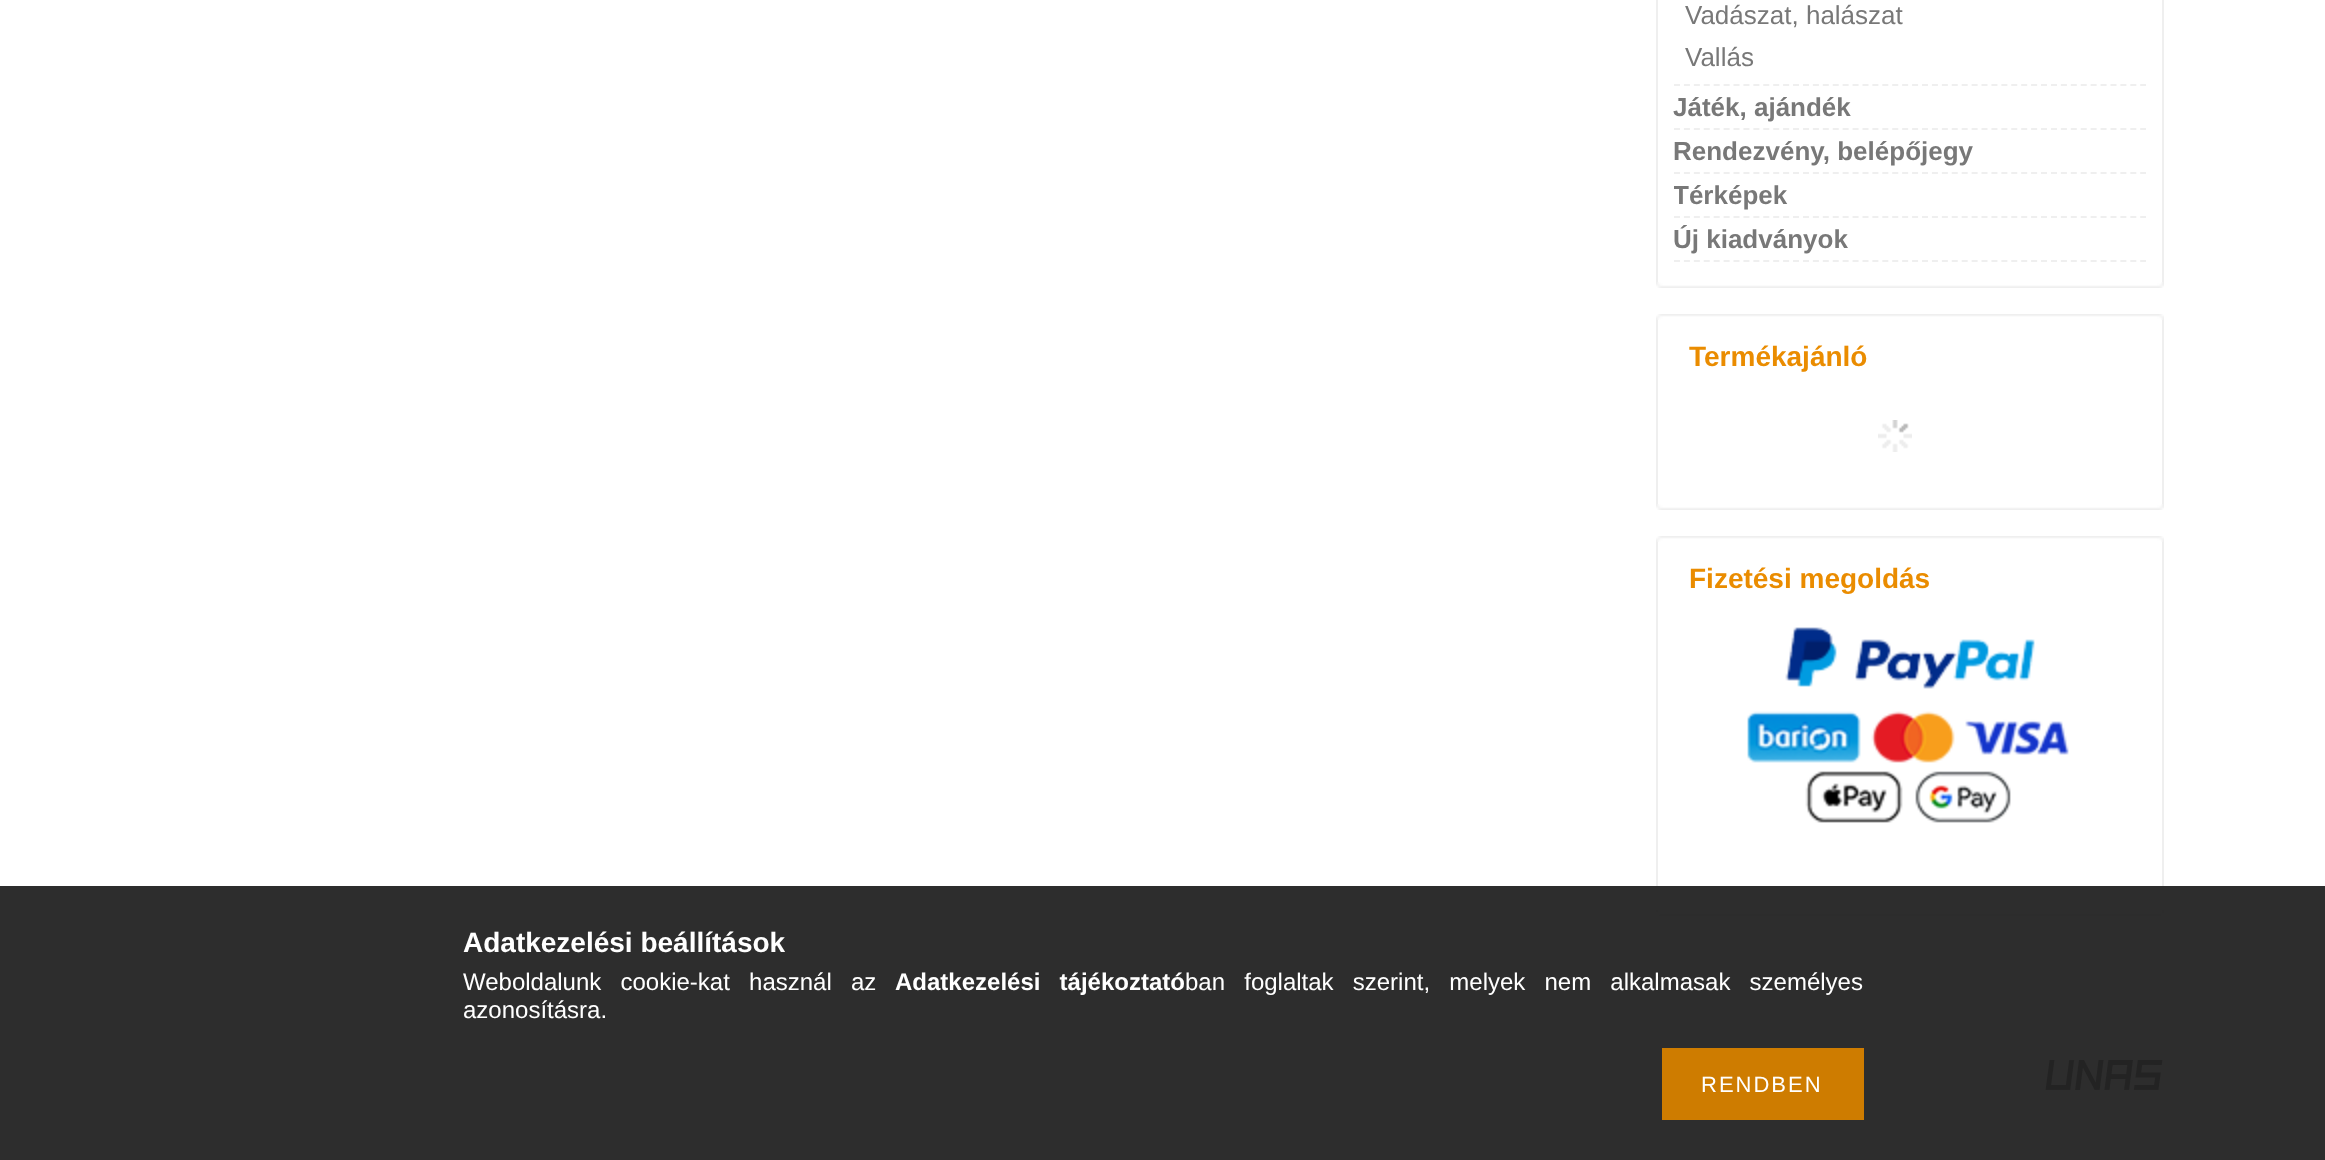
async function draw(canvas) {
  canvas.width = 2325;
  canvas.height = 1160;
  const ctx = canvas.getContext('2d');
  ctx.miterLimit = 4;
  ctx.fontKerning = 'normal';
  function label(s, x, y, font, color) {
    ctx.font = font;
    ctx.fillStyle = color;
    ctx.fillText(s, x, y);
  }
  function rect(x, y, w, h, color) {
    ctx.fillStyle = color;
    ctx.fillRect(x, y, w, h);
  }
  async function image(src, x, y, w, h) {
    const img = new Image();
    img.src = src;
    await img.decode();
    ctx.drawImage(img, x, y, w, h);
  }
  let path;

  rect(0, 0, 2325, 1160, '#fff');
  rect(0, 886, 2325, 274, '#2d2d2d');
  rect(2162, 0, 2, 282, '#efefef');
  rect(1656, 0, 2, 282, '#efefef');
  path = new Path2D('M1674 85H2146');
  ctx.strokeStyle = '#efefef';
  ctx.lineWidth = 2;
  ctx.setLineDash([6, 3.92]);
  ctx.stroke(path);
  label('Vadászat, halászat', 1685, 24, '26px Liberation Sans', '#787878');
  label('Vallás', 1685, 66, '26px Liberation Sans', '#787878');
  path = new Path2D('M1674 129H2146');
  ctx.stroke(path);
  label('Játék, ajándék', 1673, 116, 'bold 26px Liberation Sans', '#787878');
  path = new Path2D('M1674 173H2146');
  ctx.stroke(path);
  label('Rendezvény, belépőjegy', 1673, 160, 'bold 26px Liberation Sans', '#787878');
  path = new Path2D('M1674 217H2146');
  ctx.stroke(path);
  ctx.save();
  ctx.beginPath();
  ctx.rect(1674, 0, 472, 262);
  ctx.clip();
  label('Térképek', 1673, 204, 'bold 26px Liberation Sans', '#787878');
  ctx.restore();
  path = new Path2D('M1674 261H2146');
  ctx.stroke(path);
  label('Új kiadványok', 1673, 248, 'bold 26px Liberation Sans', '#787878');
  await image('assets/img1.png', 1656, 282, 508, 6);
  await image('assets/img2.png', 1656, 314, 508, 6);
  rect(2162, 320, 2, 184, '#efefef');
  rect(1656, 320, 2, 184, '#efefef');
  label('Termékajánló', 1689, 366, 'bold 28px Liberation Sans', '#ea8c00');
  await image('assets/img3.png', 1878, 420, 34, 32);
  await image('assets/img1.png', 1656, 504, 508, 6);
  await image('assets/img2.png', 1656, 536, 508, 6);
  rect(2162, 542, 2, 344, '#efefef');
  rect(1656, 542, 2, 344, '#efefef');
  label('Fizetési megoldás', 1689, 588, 'bold 28px Liberation Sans', '#ea8c00');
  await image('assets/img4.png', 1785, 627, 250, 62);
  await image('assets/img5.png', 1747, 711, 322, 112);
  await image('assets/img6.png', 1656, 910, 508, 6);
  await image('assets/img7.png', 2045, 1060, 118, 30);
  label('Adatkezelési beállítások', 463, 952, 'bold 28px Liberation Sans', '#fff');
  ctx.wordSpacing = '12.5px';
  label('Weboldalunk cookie-kat használ az', 463, 990, '24px Liberation Sans', '#fff');
  label('Adatkezelési tájékoztató', 895, 990, 'bold 24px Liberation Sans', '#fff');
  label('ban foglaltak szerint, melyek nem alkalmasak személyes', 1185, 990, '24px Liberation Sans', '#fff');
  ctx.wordSpacing = '0px';
  label('azonosításra.', 463, 1018, '24px Liberation Sans', '#fff');
  rect(1662, 1048, 202, 72, '#ce7c00');
  ctx.letterSpacing = '2px';
  label('RENDBEN', 1701, 1092, '22px Liberation Sans', '#fff');
}

draw(document.querySelector('canvas'));
